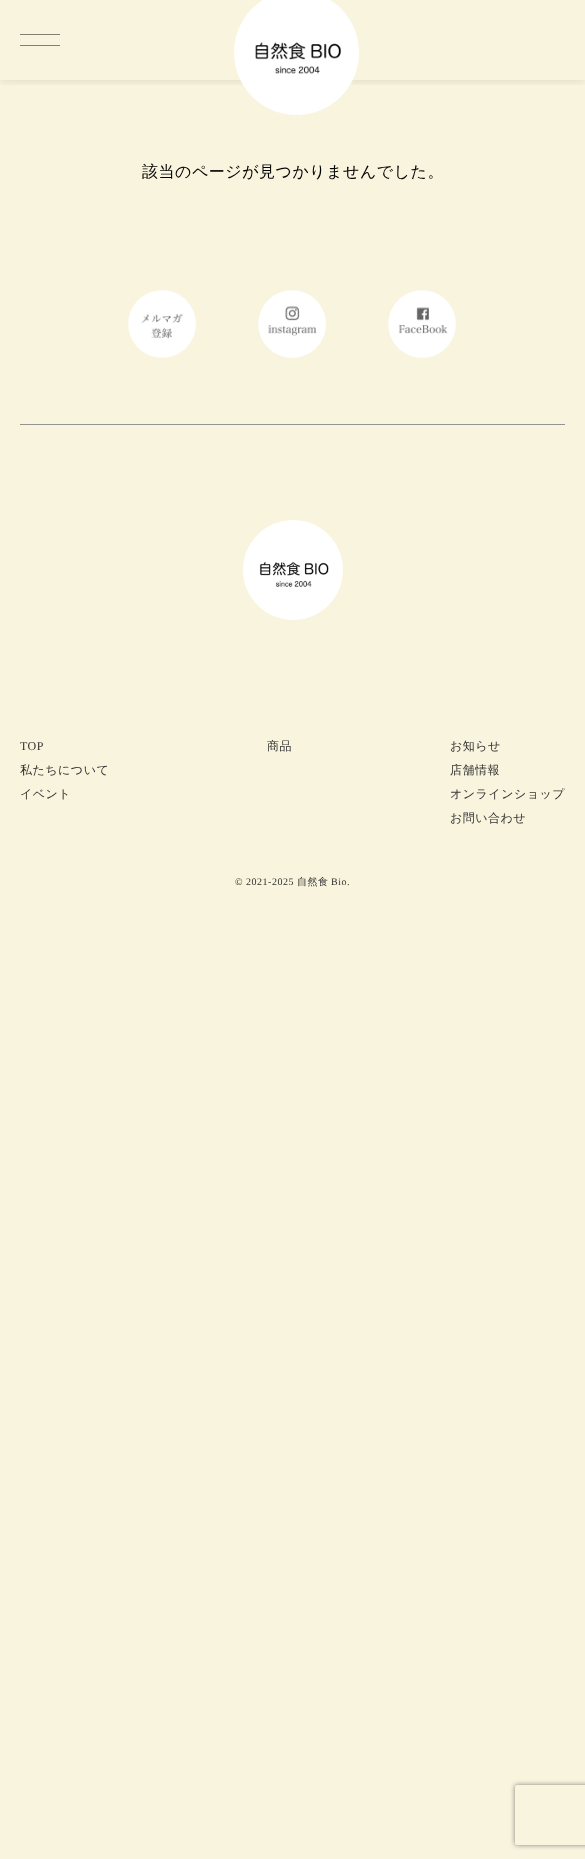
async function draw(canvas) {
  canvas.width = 585;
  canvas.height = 1859;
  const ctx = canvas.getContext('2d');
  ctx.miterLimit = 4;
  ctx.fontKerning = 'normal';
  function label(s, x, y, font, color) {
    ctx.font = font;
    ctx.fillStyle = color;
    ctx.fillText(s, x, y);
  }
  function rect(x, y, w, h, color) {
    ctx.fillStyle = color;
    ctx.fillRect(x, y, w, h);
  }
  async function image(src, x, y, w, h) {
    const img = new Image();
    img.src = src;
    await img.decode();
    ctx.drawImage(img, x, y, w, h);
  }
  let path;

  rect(0, 0, 585, 1859, '#f9f4dd');
  ctx.save();
  ctx.beginPath();
  ctx.rect(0, 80, 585, 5);
  ctx.clip();
  ctx.fillStyle = '#0000001a';
  ctx.filter = 'blur(5px)';
  ctx.beginPath();
  ctx.rect(0, 1, 585, 80);
  ctx.fill();
  ctx.filter = 'none';
  ctx.restore();
  rect(20, 34, 40, 1, '#817e72');
  rect(20, 45, 40, 1, '#817e72');
  await image('assets/img1.png', 234, 0, 125, 115);
  ctx.letterSpacing = '0.5px';
  label('該当のページが見つかりませんでした。', 142, 177, '500 16px WenQuanYi Zen Hei', '#000');
  await image('assets/img2.png', 128, 290, 69, 68);
  await image('assets/img3.png', 258, 290, 69, 69);
  await image('assets/img4.png', 388, 290, 69, 69);
  rect(20, 424, 545, 1, '#939393');
  await image('assets/img5.png', 243, 520, 100, 100);
  label('TOP', 20, 750, '12px Liberation Serif', '#333');
  label('私たちについて', 20, 774, '500 12px WenQuanYi Zen Hei', '#333');
  label('イベント', 20, 798, '500 12px WenQuanYi Zen Hei', '#333');
  label('商品', 267, 750, '500 12px WenQuanYi Zen Hei', '#333');
  label('お知らせ', 450, 750, '500 12px WenQuanYi Zen Hei', '#333');
  label('店舗情報', 450, 774, '500 12px WenQuanYi Zen Hei', '#333');
  label('オンラインショップ', 450, 798, '500 12px WenQuanYi Zen Hei', '#333');
  label('お問い合わせ', 450, 822, '500 12px WenQuanYi Zen Hei', '#333');
  label('© 2021-2025', 235, 885, '10px Liberation Serif', '#333');
  label('自然食', 297, 885, '500 10px WenQuanYi Zen Hei', '#333');
  label('Bio.', 331, 885, '10px Liberation Serif', '#333');
  ctx.save();
  path = new Path2D('M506 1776H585V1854H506ZM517 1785H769C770 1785 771 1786 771 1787V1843C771 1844 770 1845 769 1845H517C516 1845 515 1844 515 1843V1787C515 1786 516 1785 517 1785Z');
  ctx.clip(path, 'evenodd');
  ctx.fillStyle = '#808080';
  ctx.filter = 'blur(2.5px)';
  ctx.beginPath();
  ctx.roundRect(515, 1785, 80, 60, 2);
  ctx.fill();
  ctx.filter = 'none';
  ctx.restore();
}

draw(document.querySelector('canvas'));
